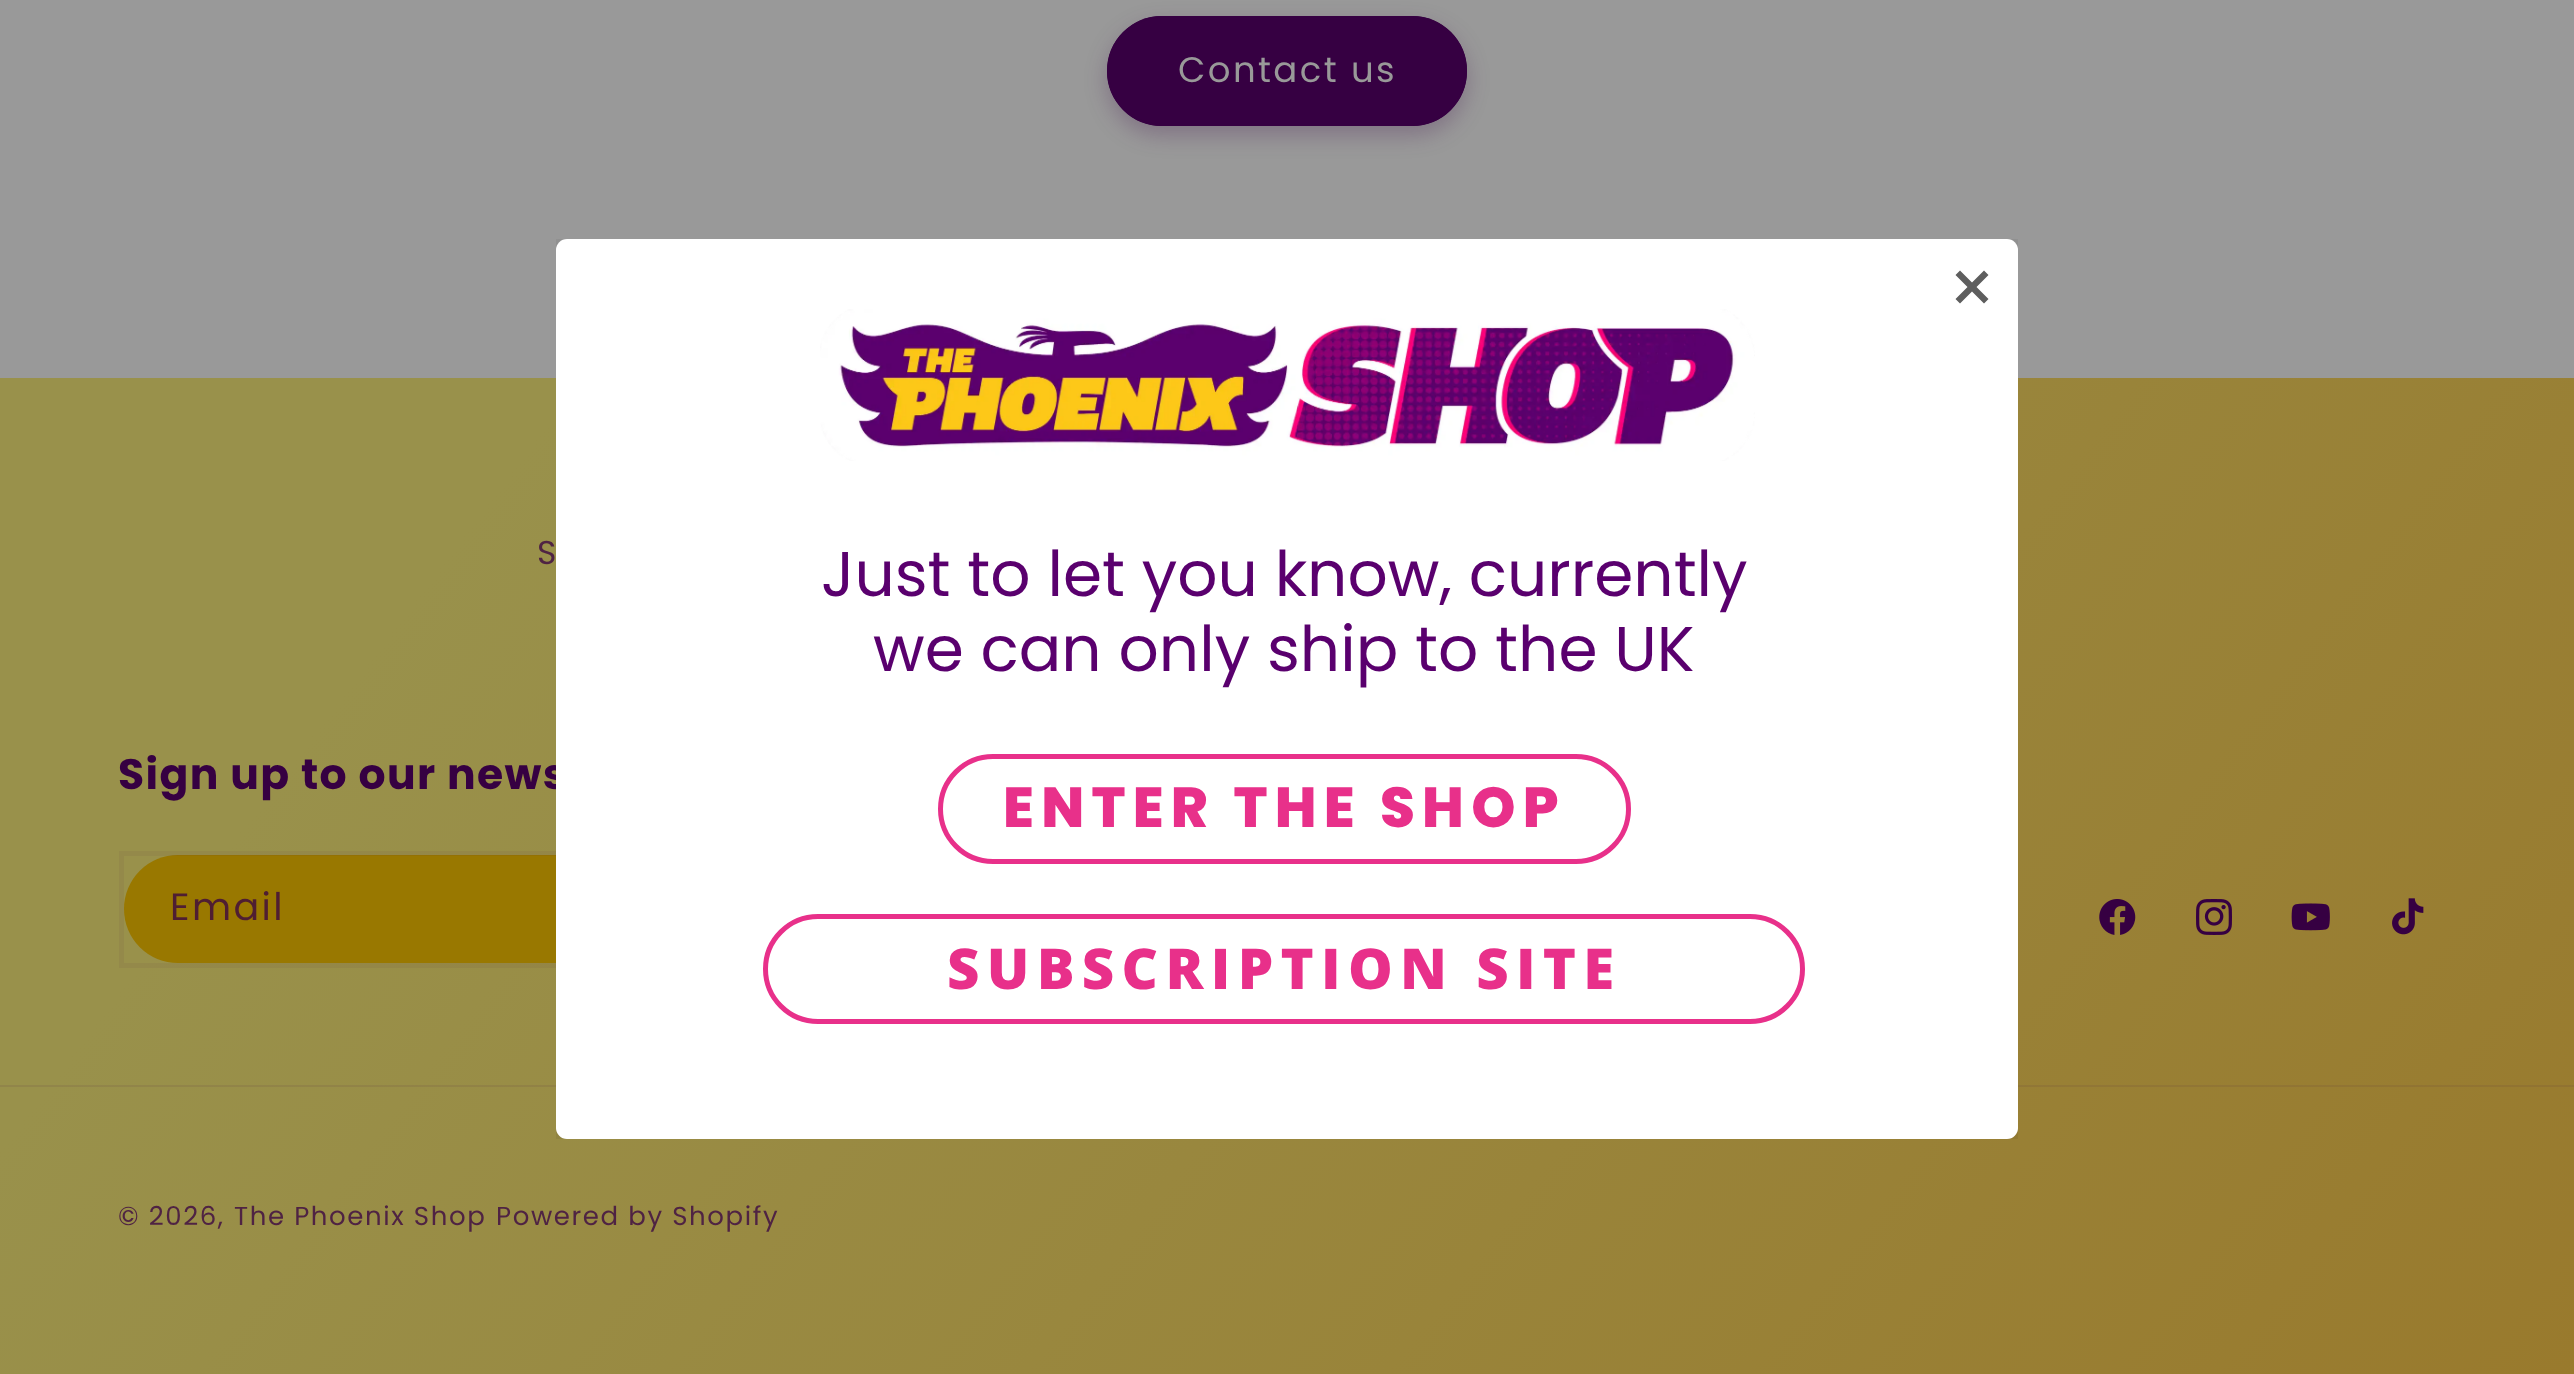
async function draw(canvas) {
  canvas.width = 2574;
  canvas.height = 1374;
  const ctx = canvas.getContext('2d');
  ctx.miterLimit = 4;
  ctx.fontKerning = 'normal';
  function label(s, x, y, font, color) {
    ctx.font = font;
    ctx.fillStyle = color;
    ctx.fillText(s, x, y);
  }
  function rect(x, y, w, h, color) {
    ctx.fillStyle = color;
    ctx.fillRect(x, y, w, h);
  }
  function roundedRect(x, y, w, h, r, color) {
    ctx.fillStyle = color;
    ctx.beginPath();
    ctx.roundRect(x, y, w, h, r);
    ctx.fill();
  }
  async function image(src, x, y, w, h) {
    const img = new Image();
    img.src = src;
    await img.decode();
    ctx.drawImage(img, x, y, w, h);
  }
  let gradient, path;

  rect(0, 0, 2574, 1374, '#999');
  ctx.fillStyle = '#36004240';
  ctx.filter = 'blur(11px)';
  ctx.beginPath();
  ctx.roundRect(1107, 25, 360, 110, 55);
  ctx.fill();
  ctx.filter = 'none';
  roundedRect(1107, 16, 360, 110, 55, '#360042');
  ctx.beginPath();
  ctx.roundRect(1108, 17, 358, 108, 54);
  ctx.strokeStyle = '#360042';
  ctx.lineWidth = 2;
  ctx.stroke();
  ctx.letterSpacing = '2.4px';
  label('Contact us', 1178, 82, '35.5px Poppins', '#999');
  gradient = ctx.createLinearGradient(136, -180, 2438, 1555);
  gradient.addColorStop(0.24, '#99914b');
  gradient.addColorStop(1, '#997a2d');
  ctx.fillStyle = gradient;
  ctx.fillRect(0, 378, 2574, 996);
  gradient = ctx.createLinearGradient(136, -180, 2438, 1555);
  gradient.addColorStop(0.24, '#91854a');
  gradient.addColorStop(1, '#91712f');
  ctx.fillStyle = gradient;
  ctx.fillRect(0, 1085, 2574, 2);
  ctx.letterSpacing = '1.4px';
  label('S', 537, 564, '33px Poppins', '#4f2343');
  label('Sign up to our news', 118, 789, 'bold 42.5px Poppins', '#360042');
  roundedRect(124, 855, 841, 108, 54, '#997800');
  ctx.strokeStyle = '#3600420d';
  ctx.lineWidth = 5;
  ctx.strokeRect(121.5, 853.5, 846, 112);
  ctx.letterSpacing = '2.4px';
  label('Email', 170, 920, '38px Poppins', '#4f1e32');
  await image('assets/img1.png', 2099, 899, 37, 36);
  await image('assets/img2.png', 2196, 899, 36, 36);
  await image('assets/img3.png', 2291, 903, 39, 28);
  await image('assets/img4.png', 2392, 898, 32, 37);
  ctx.letterSpacing = '1.6px';
  label('© 2026,', 118, 1225, '26px Poppins', '#4f2343');
  label('The Phoenix Shop', 234, 1225, '26px Poppins', '#4f2343');
  label('Powered by Shopify', 496, 1225, '26px Poppins', '#4f2343');
  ctx.save();
  ctx.beginPath();
  ctx.rect(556, 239, 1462, 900);
  ctx.clip();
  ctx.fillStyle = '#00000033';
  ctx.filter = 'blur(23.5px)';
  ctx.beginPath();
  ctx.roundRect(556, 239, 1462, 900, 11);
  ctx.fill();
  ctx.filter = 'none';
  ctx.restore();
  roundedRect(556, 239, 1462, 900, 11, '#fff');
  ctx.fillStyle = '#5e5e5e';
  path = new Path2D('M1988.5 275L1984 270.5L1972 282.5L1960 270.5L1955.5 275L1967.5 287L1955.5 299L1960 303.5L1972 291.5L1984 303.5L1988.5 299L1976.5 287Z');
  ctx.fill(path);
  await image('assets/img5.png', 820, 309, 935, 152);
  ctx.letterSpacing = '0px';
  label('Just to let you know, currently', 821, 596, '63px Poppins', '#5a006e');
  label('we can only ship to the UK', 873, 671, '63px Poppins', '#5a006e');
  ctx.beginPath();
  ctx.roundRect(940.5, 756.5, 688, 105, 52.5);
  ctx.strokeStyle = '#e8308a';
  ctx.stroke();
  ctx.letterSpacing = '7.3px';
  label('ENTER THE SHOP', 1003, 827, '800 56.25px Poppins', '#e8308a');
  ctx.beginPath();
  ctx.roundRect(765.5, 916.5, 1037, 105, 52.5);
  ctx.stroke();
  label('SUBSCRIPTION SITE', 947, 989, '800 56.25px Open Sans', '#e8308a');
}

draw(document.querySelector('canvas'));
